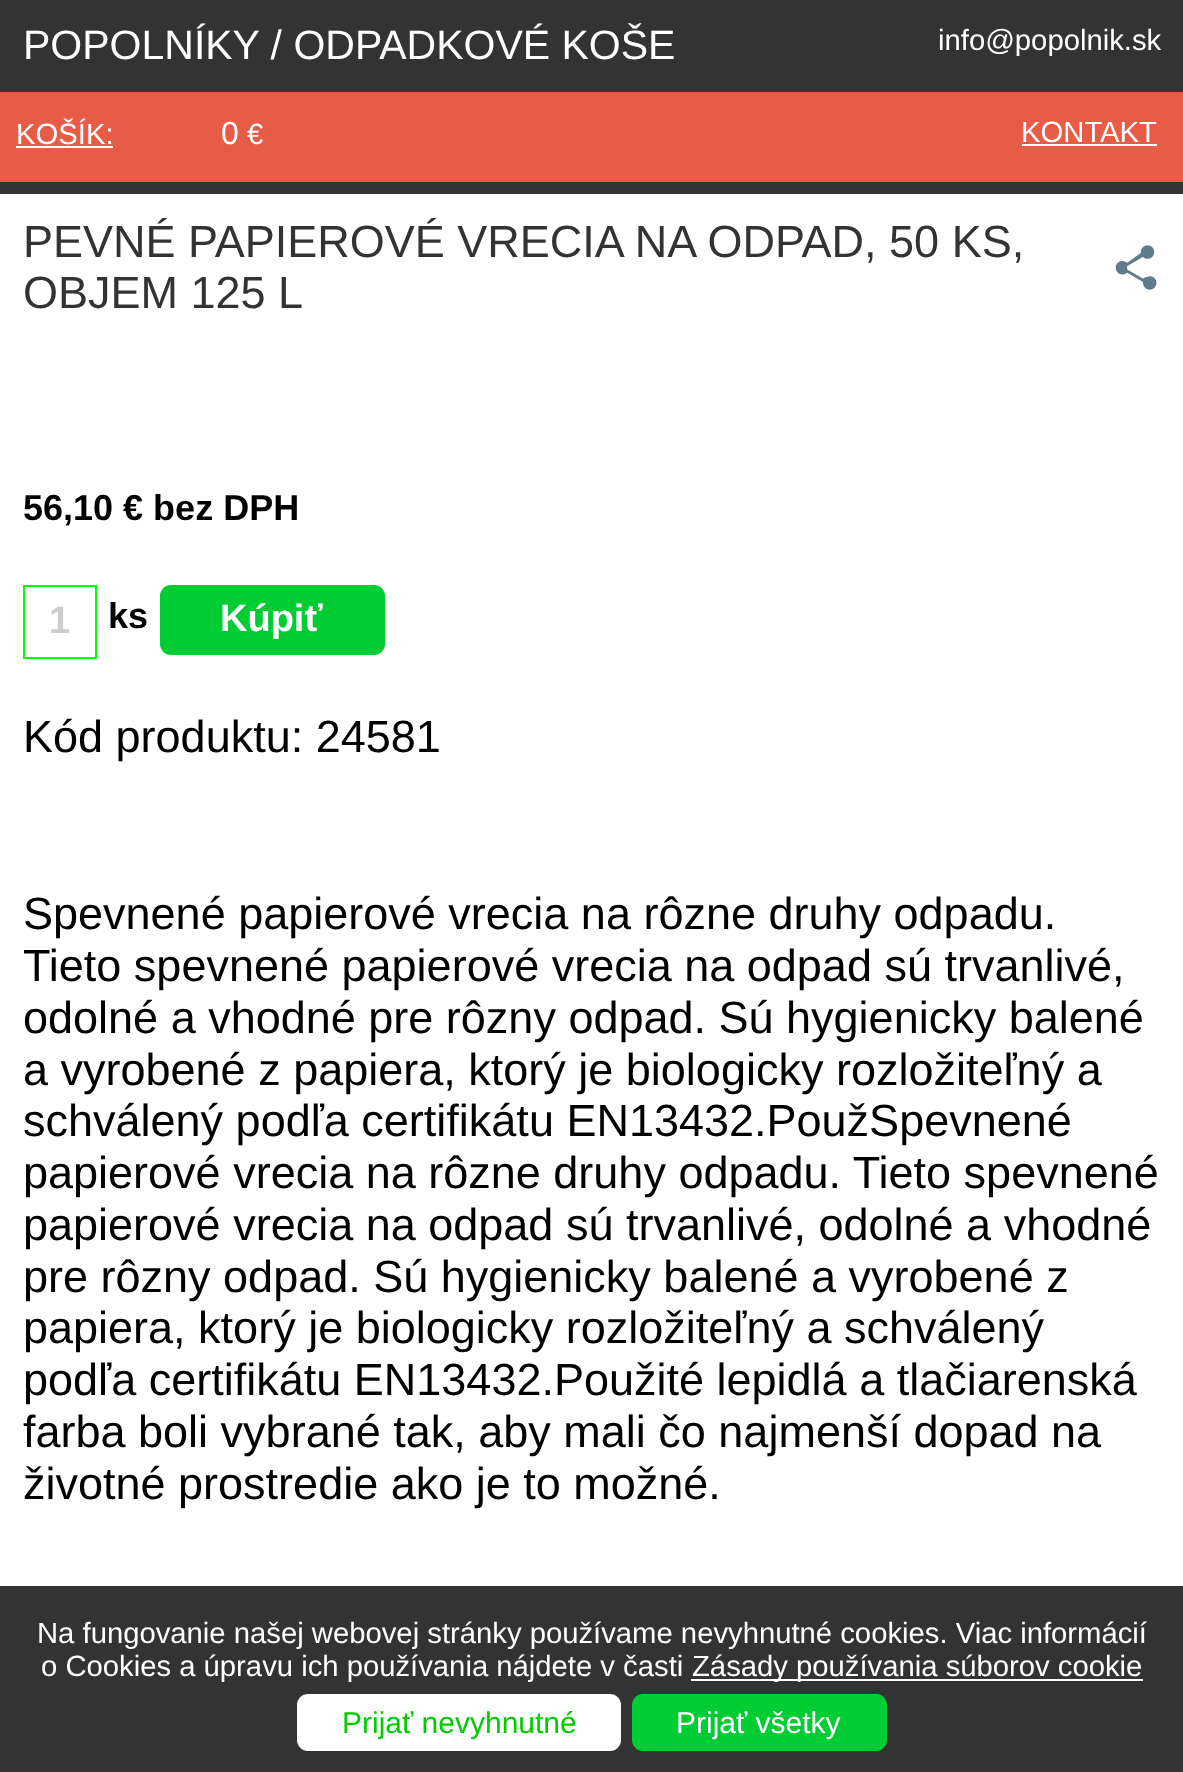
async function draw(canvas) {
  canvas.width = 1183;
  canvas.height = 1772;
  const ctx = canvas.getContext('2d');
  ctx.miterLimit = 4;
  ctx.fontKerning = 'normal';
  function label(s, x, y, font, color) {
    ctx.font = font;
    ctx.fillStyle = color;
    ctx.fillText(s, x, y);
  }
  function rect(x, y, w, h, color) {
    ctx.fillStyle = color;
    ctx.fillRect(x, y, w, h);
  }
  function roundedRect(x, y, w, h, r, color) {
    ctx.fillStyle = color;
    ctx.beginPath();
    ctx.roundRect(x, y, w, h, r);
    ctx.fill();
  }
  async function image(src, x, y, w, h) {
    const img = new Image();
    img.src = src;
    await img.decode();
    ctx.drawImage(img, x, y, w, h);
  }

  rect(0, 0, 1183, 1772, '#333');
  label('POPOLNÍKY / ODPADKOVÉ KOŠE', 23, 59, '41px Liberation Sans', '#fff');
  label('info@popolnik.sk', 938, 50, '29.25px Liberation Sans', '#fff');
  rect(0, 92, 1183, 90, '#e75c46');
  label('KOŠÍK:', 16, 144, '29.25px Liberation Sans', '#fff');
  rect(16, 146, 97, 2, '#fff');
  label('0', 221, 144, '32px Liberation Sans', '#fff');
  label('€', 247, 144, '29.25px Liberation Sans', '#fff');
  label('KONTAKT', 1021, 142, '29.25px Liberation Sans', '#fff');
  rect(1022, 144, 135, 2, '#fff');
  rect(0, 194, 1183, 1392, '#fff');
  label('PEVNÉ PAPIEROVÉ VRECIA NA ODPAD, 50 KS,', 23, 257, '45px Liberation Sans', '#333');
  label('OBJEM 125 L', 23, 308, '45px Liberation Sans', '#333');
  await image('assets/img1.png', 1115, 245, 42, 45);
  label('56,10 € bez DPH', 23, 520, 'bold 36px Liberation Sans', '#000');
  ctx.strokeStyle = '#0f0';
  ctx.lineWidth = 2;
  ctx.strokeRect(24, 586, 72, 72);
  label('1', 49, 633, 'bold 38px Liberation Sans', '#ccc');
  label('ks', 108, 628, 'bold 36px Liberation Sans', '#000');
  roundedRect(160, 585, 225, 70, 11, '#0c3');
  label('Kúpiť', 220, 631, 'bold 38px Liberation Sans', '#fff');
  label('Kód produktu: 24581', 23, 752, '45px Liberation Sans', '#000');
  label('Spevnené papierové vrecia na rôzne druhy odpadu.', 23, 929, '45px Liberation Sans', '#000');
  label('Tieto spevnené papierové vrecia na odpad sú trvanlivé,', 23, 981, '45px Liberation Sans', '#000');
  label('odolné a vhodné pre rôzny odpad. Sú hygienicky balené', 23, 1033, '45px Liberation Sans', '#000');
  label('a vyrobené z papiera, ktorý je biologicky rozložiteľný a', 23, 1085, '45px Liberation Sans', '#000');
  label('schválený podľa certifikátu EN13432.PoužSpevnené', 23, 1136, '45px Liberation Sans', '#000');
  label('papierové vrecia na rôzne druhy odpadu. Tieto spevnené', 23, 1188, '45px Liberation Sans', '#000');
  label('papierové vrecia na odpad sú trvanlivé, odolné a vhodné', 23, 1240, '45px Liberation Sans', '#000');
  label('pre rôzny odpad. Sú hygienicky balené a vyrobené z', 23, 1292, '45px Liberation Sans', '#000');
  label('papiera, ktorý je biologicky rozložiteľný a schválený', 23, 1343, '45px Liberation Sans', '#000');
  label('podľa certifikátu EN13432.Použité lepidlá a tlačiarenská', 23, 1395, '45px Liberation Sans', '#000');
  label('farba boli vybrané tak, aby mali čo najmenší dopad na', 23, 1447, '45px Liberation Sans', '#000');
  label('životné prostredie ako je to možné.', 23, 1499, '45px Liberation Sans', '#000');
  label('Na fungovanie našej webovej stránky používame nevyhnutné cookies. Viac informácií', 37, 1643, '29.25px Liberation Sans', '#fff');
  label('o Cookies a úpravu ich používania nájdete v časti', 41, 1676, '29.25px Liberation Sans', '#fff');
  rect(691, 1679, 452, 2, '#fff');
  label('Zásady používania súborov cookie', 692, 1676, '29.25px Liberation Sans', '#fff');
  roundedRect(297, 1694, 324, 57, 11, '#fff');
  label('Prijať nevyhnutné', 342, 1733, '30px Liberation Sans', '#0c0');
  roundedRect(632, 1694, 255, 57, 11, '#0c3');
  label('Prijať všetky', 676, 1733, '30px Liberation Sans', '#fff');
}

draw(document.querySelector('canvas'));
